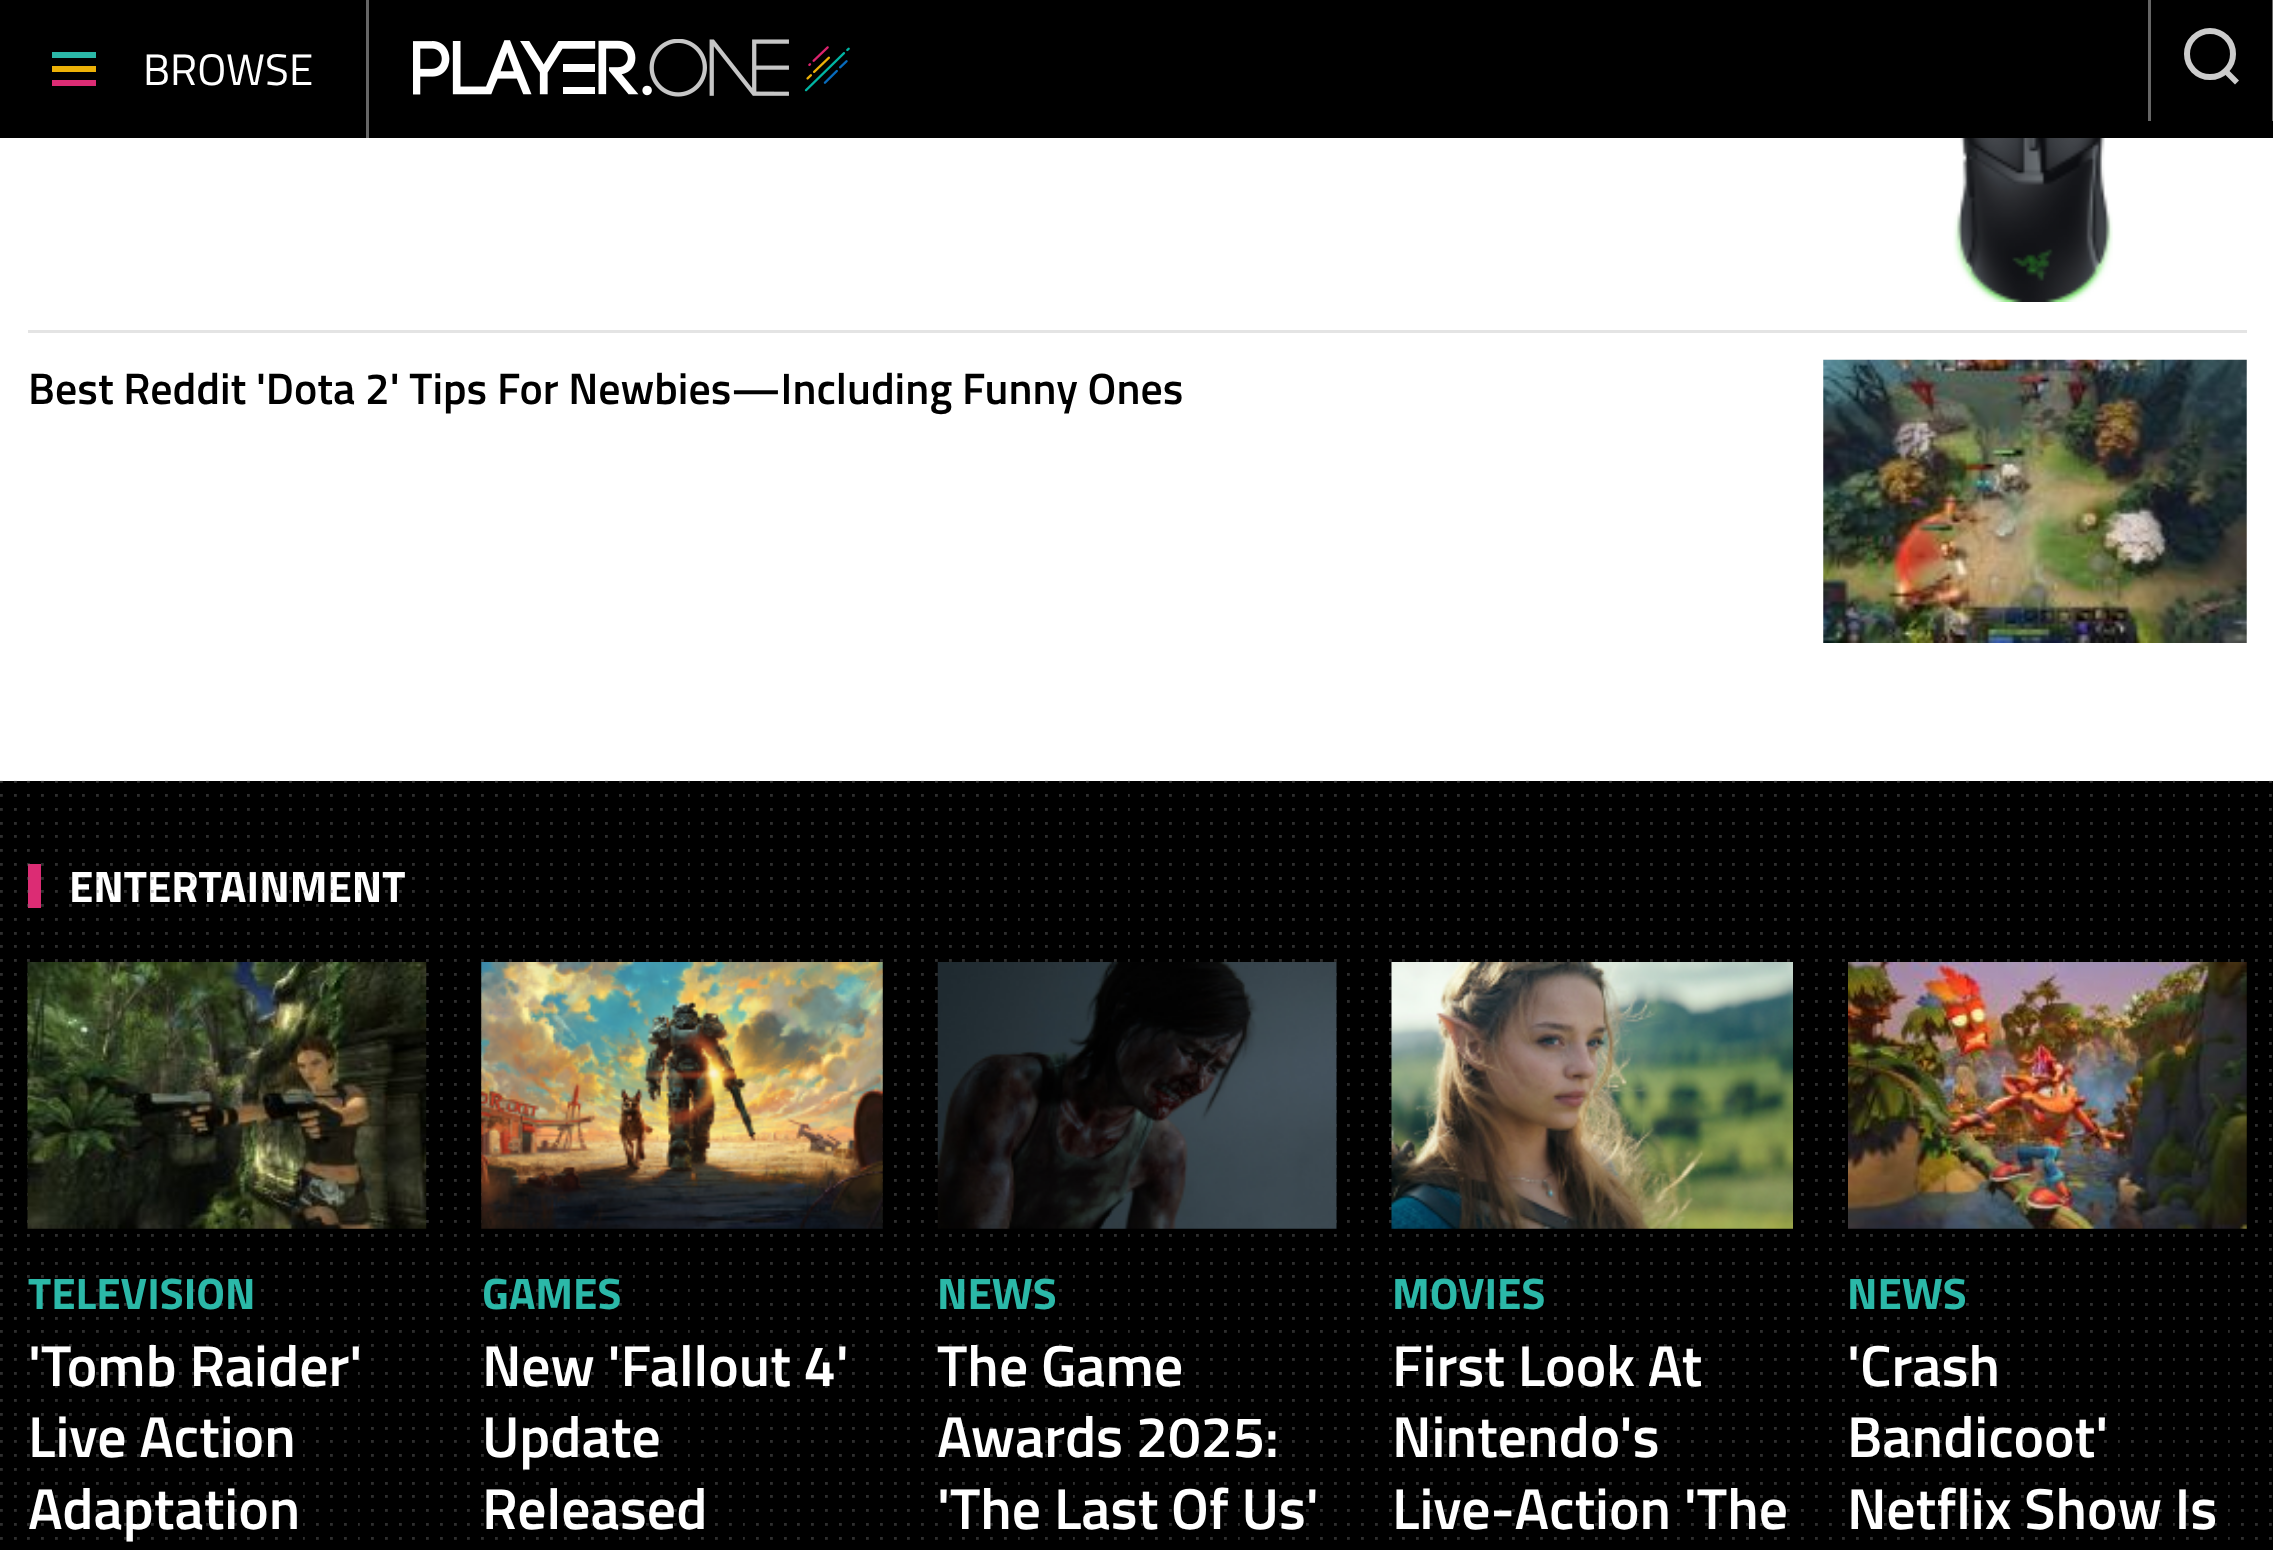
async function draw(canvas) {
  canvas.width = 2273;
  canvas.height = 1550;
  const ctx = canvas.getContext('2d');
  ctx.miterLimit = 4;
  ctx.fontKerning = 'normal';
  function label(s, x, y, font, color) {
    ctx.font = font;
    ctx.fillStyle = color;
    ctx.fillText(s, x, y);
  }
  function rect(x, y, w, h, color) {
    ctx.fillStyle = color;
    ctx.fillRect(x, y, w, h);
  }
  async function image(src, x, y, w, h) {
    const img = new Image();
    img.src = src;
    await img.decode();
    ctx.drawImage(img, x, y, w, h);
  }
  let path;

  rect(0, 0, 2273, 1550, '#fff');
  rect(0, 0, 2273, 138, '#000');
  rect(366, 0, 3, 138, '#666');
  rect(52, 66, 44, 6, '#edb107');
  rect(52, 52, 44, 6, '#2bb8a8');
  rect(52, 80, 44, 6, '#dc2c74');
  label('BROWSE', 143, 85, '44px Titillium Web', '#fff');
  await image('assets/img1.png', 413, 39, 437, 58);
  rect(2272, 0, 1, 121, '#666');
  rect(2148, 0, 3, 121, '#666');
  ctx.beginPath();
  ctx.arc(2210, 54, 23, 0, 2 * Math.PI);
  ctx.strokeStyle = '#ccc';
  ctx.lineWidth = 6;
  ctx.stroke();
  ctx.fillStyle = '#ccc';
  path = new Path2D('M2221.5 71L2225.5 67L2239 80.5L2235 84.5Z');
  ctx.fill(path);
  await image('assets/img2.png', 1953, 138, 160, 164);
  rect(28, 330, 2219, 3, '#e4e4e4');
  label('Best Reddit \'Dota 2\' Tips For Newbies—Including Funny Ones', 28, 404, '600 44px Titillium Web', '#000');
  await image('assets/img3.png', 1823, 359, 424, 284);
  rect(0, 781, 2273, 769, '#000');
  rect(28, 864, 13, 44, '#dc2c74');
  label('ENTERTAINMENT', 69, 902, 'bold 44px Titillium Web', '#fff');
  await image('assets/img4.png', 0, 780, 2272, 760);
  await image('assets/img5.png', 27, 962, 400, 267);
  label('TELEVISION', 28, 1309, 'bold 44px Titillium Web', '#2bb8a8');
  label('\'Tomb Raider\'', 28, 1386, '600 57.75px Titillium Web', '#fff');
  label('Live Action', 28, 1457, '600 57.75px Titillium Web', '#fff');
  label('Adaptation', 28, 1529, '600 57.75px Titillium Web', '#fff');
  await image('assets/img6.png', 481, 962, 402, 267);
  label('GAMES', 482, 1309, 'bold 44px Titillium Web', '#2bb8a8');
  label('New \'Fallout 4\'', 482, 1386, '600 57.75px Titillium Web', '#fff');
  label('Update', 482, 1457, '600 57.75px Titillium Web', '#fff');
  label('Released', 482, 1529, '600 57.75px Titillium Web', '#fff');
  await image('assets/img7.png', 937, 962, 400, 267);
  label('NEWS', 937, 1309, 'bold 44px Titillium Web', '#2bb8a8');
  label('The Game', 937, 1386, '600 57.75px Titillium Web', '#fff');
  label('Awards 2025:', 937, 1457, '600 57.75px Titillium Web', '#fff');
  label('\'The Last Of Us\'', 937, 1529, '600 57.75px Titillium Web', '#fff');
  await image('assets/img8.png', 1391, 962, 402, 267);
  label('MOVIES', 1392, 1309, 'bold 44px Titillium Web', '#2bb8a8');
  label('First Look At', 1392, 1386, '600 57.75px Titillium Web', '#fff');
  label('Nintendo\'s', 1392, 1457, '600 57.75px Titillium Web', '#fff');
  label('Live-Action \'The', 1392, 1529, '600 57.75px Titillium Web', '#fff');
  await image('assets/img9.png', 1848, 962, 399, 267);
  label('NEWS', 1847, 1309, 'bold 44px Titillium Web', '#2bb8a8');
  label('\'Crash', 1847, 1386, '600 57.75px Titillium Web', '#fff');
  label('Bandicoot\'', 1847, 1457, '600 57.75px Titillium Web', '#fff');
  label('Netflix Show Is', 1847, 1529, '600 57.75px Titillium Web', '#fff');
}

draw(document.querySelector('canvas'));
